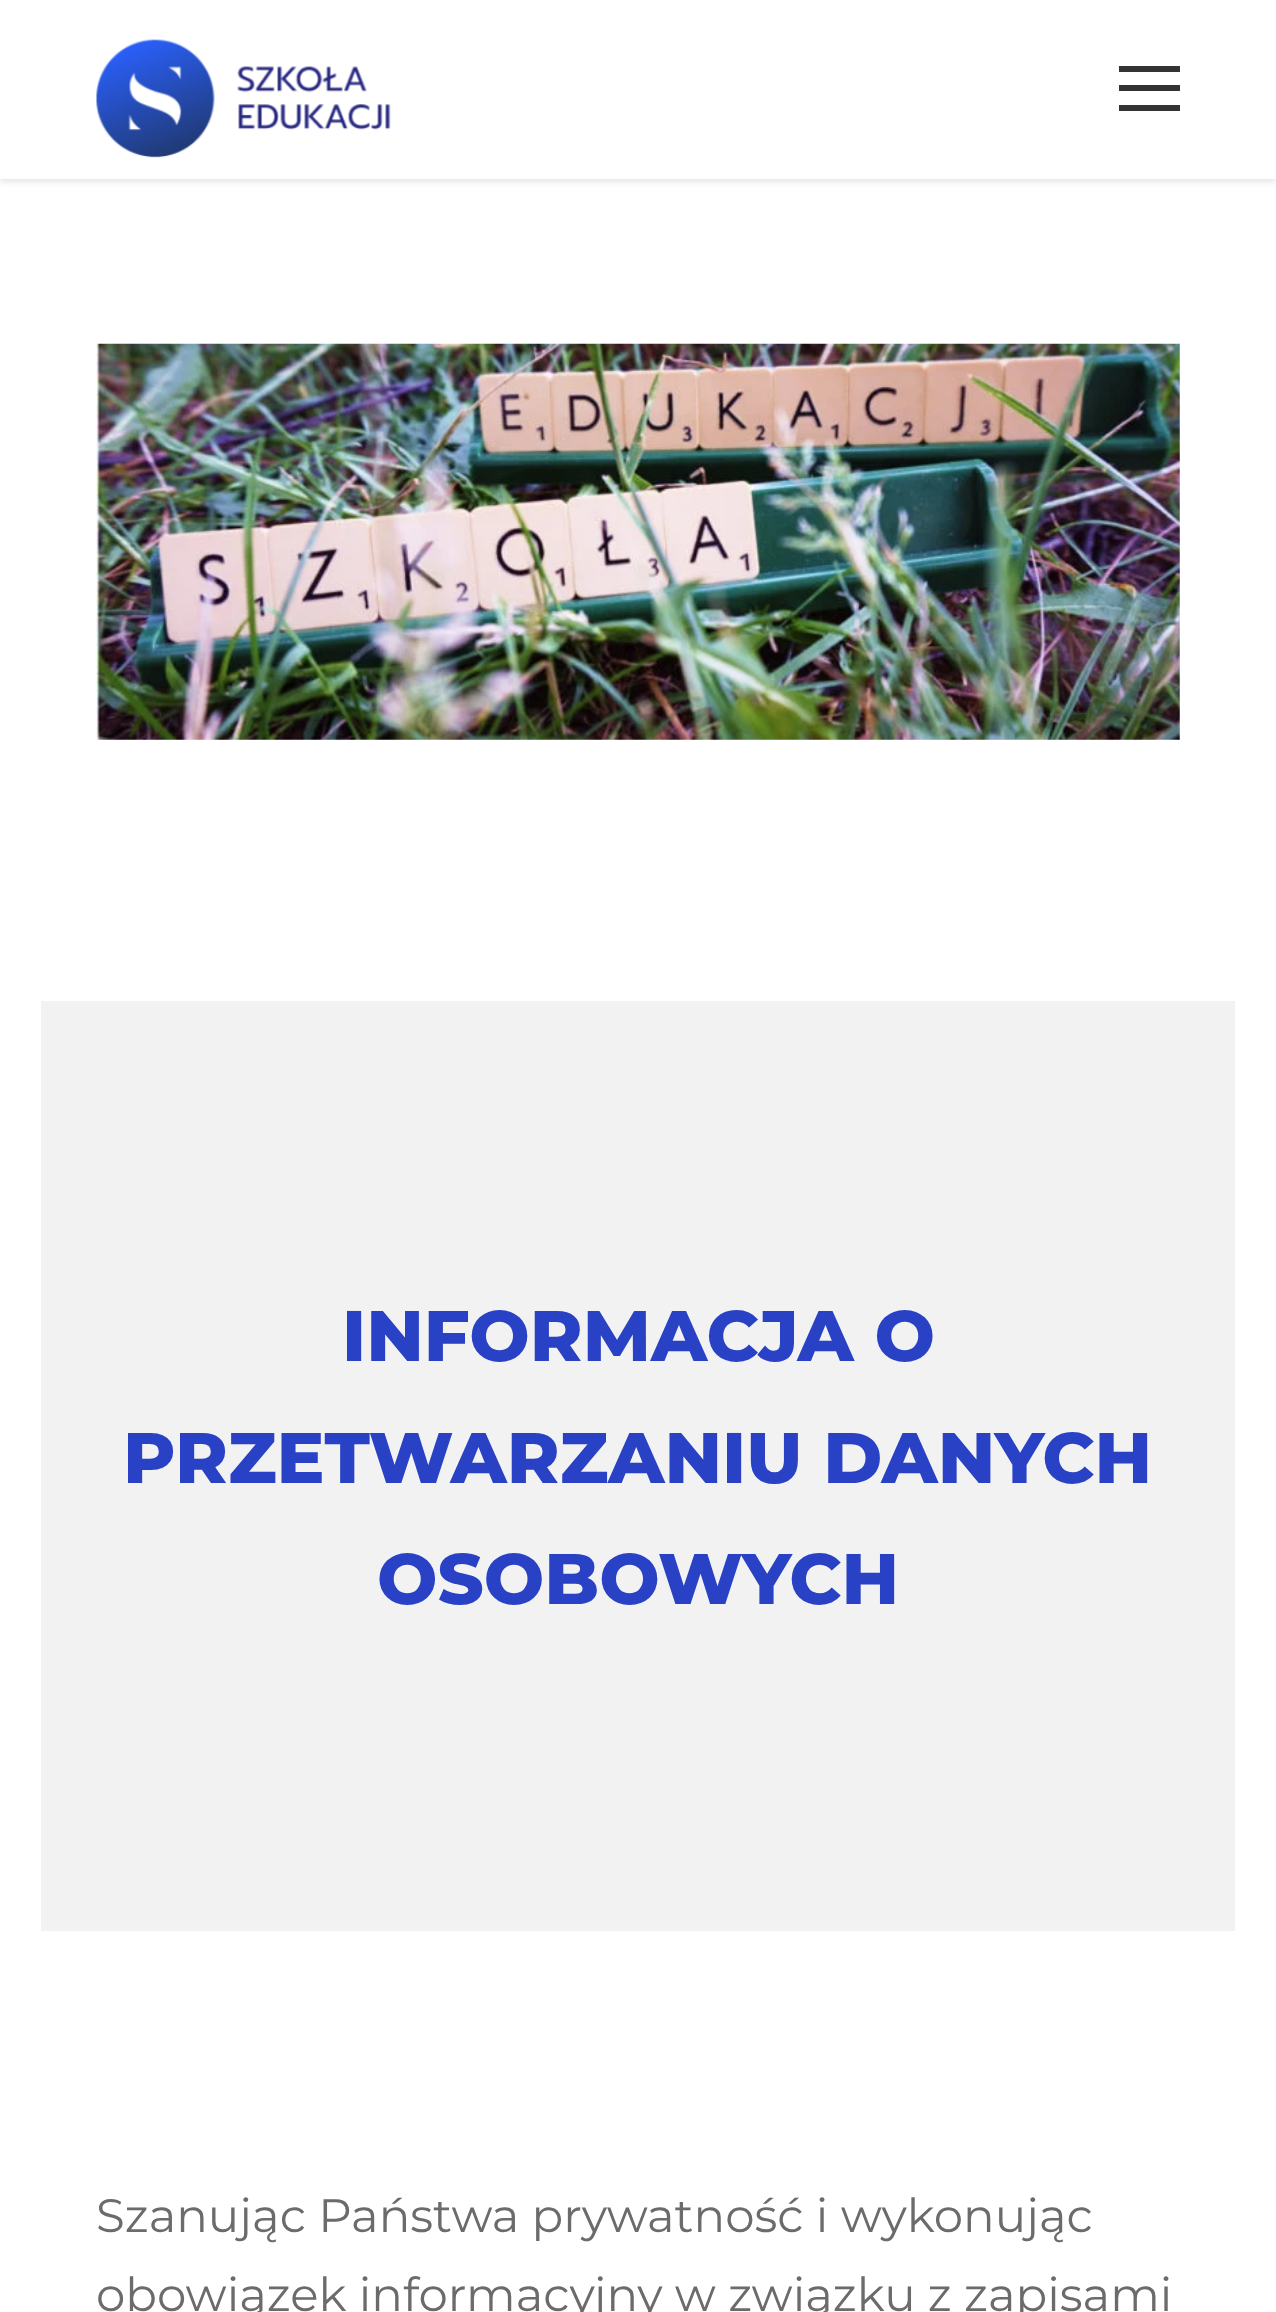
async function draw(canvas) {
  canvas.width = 1276;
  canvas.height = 2312;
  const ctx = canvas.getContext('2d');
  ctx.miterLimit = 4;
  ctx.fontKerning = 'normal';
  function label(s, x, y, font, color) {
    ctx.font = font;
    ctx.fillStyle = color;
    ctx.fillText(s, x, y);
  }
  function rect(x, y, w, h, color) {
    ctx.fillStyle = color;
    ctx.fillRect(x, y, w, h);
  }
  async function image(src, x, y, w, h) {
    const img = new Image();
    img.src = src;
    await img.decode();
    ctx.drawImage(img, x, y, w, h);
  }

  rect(0, 0, 1276, 2312, '#fff');
  ctx.fillStyle = '#0000001a';
  ctx.filter = 'blur(3px)';
  ctx.beginPath();
  ctx.rect(0, 3, 1276, 179);
  ctx.fill();
  ctx.filter = 'none';
  rect(0, 0, 1276, 179, '#fff');
  await image('assets/img1.png', 96, 39, 295, 119);
  rect(1119, 66, 61, 6, '#333');
  rect(1119, 85, 61, 6, '#333');
  rect(1119, 105, 61, 6, '#333');
  await image('assets/img2.png', 96, 343, 1084, 397);
  rect(41, 1001, 1194, 930, '#f2f2f2');
  label('INFORMACJA O', 342, 1361, '800 71.5px Montserrat', '#2841c5');
  label('PRZETWARZANIU DANYCH', 123, 1483, '800 71.5px Montserrat', '#2841c5');
  label('OSOBOWYCH', 377, 1604, '800 71.5px Montserrat', '#2841c5');
  label('Szanując Państwa prywatność i wykonując', 96, 2232, '46.75px Montserrat', '#6b6b6b');
  label('obowiązek informacyjny w związku z zapisami', 96, 2311, '46.75px Montserrat', '#6b6b6b');
}

draw(document.querySelector('canvas'));
